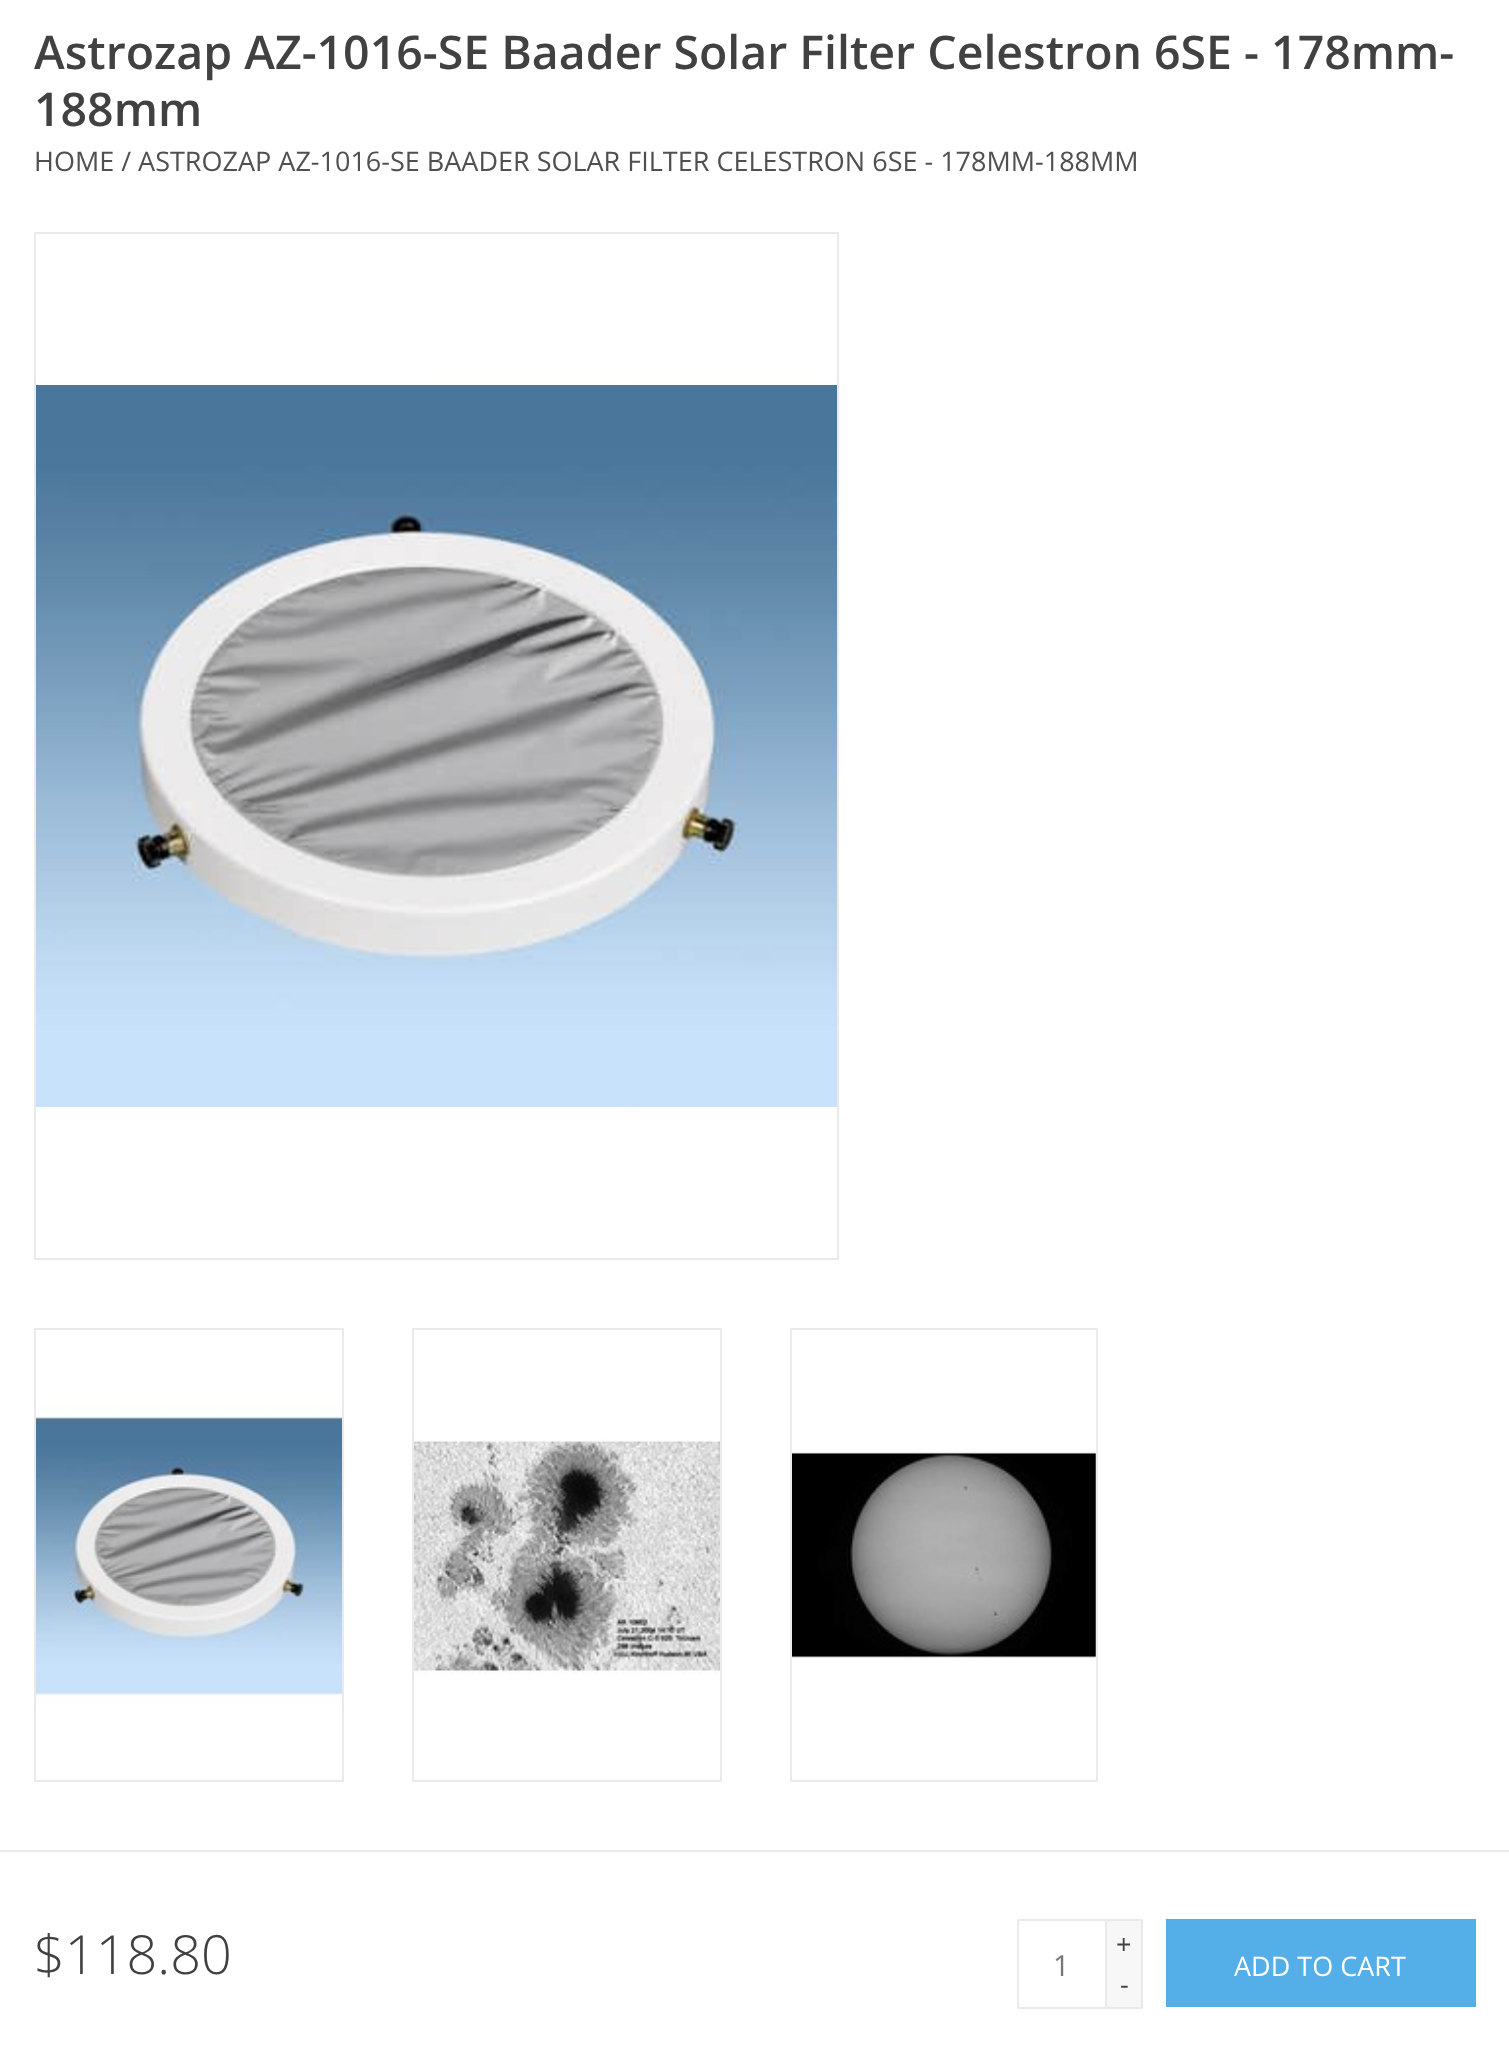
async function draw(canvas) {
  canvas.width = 1509;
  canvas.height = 2051;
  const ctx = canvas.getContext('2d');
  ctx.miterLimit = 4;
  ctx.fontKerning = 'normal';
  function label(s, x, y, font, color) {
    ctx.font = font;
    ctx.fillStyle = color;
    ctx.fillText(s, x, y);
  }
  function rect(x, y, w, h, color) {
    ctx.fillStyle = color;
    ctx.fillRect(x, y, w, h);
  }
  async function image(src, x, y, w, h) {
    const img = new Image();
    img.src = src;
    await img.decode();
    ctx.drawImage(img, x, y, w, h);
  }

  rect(0, 0, 1509, 2051, '#fff');
  label('Astrozap AZ-1016-SE Baader Solar Filter Celestron 6SE - 178mm-', 34, 69, '600 46.45px Open Sans', '#414141');
  label('188mm', 34, 126, '600 46.45px Open Sans', '#414141');
  label('HOME / ASTROZAP AZ-1016-SE BAADER SOLAR FILTER CELESTRON 6SE - 178MM-188MM', 34, 171, '27px Open Sans', '#505050');
  ctx.strokeStyle = '#eaeaea';
  ctx.lineWidth = 2;
  ctx.strokeRect(35, 233, 803, 1026);
  rect(36, 234, 801, 1, '#f7f7f7');
  await image('assets/img1.png', 36, 234, 801, 1024);
  ctx.strokeRect(35, 1329, 308, 452);
  await image('assets/img2.png', 36, 1330, 306, 450);
  ctx.strokeRect(413, 1329, 308, 452);
  await image('assets/img3.png', 414, 1330, 306, 450);
  ctx.strokeRect(791, 1329, 306, 452);
  await image('assets/img4.png', 792, 1330, 304, 450);
  rect(0, 1850, 1509, 2, '#eaeaea');
  label('$118.80', 34, 1974, '300 54px Open Sans', '#414141');
  ctx.strokeRect(1018, 1920, 88, 88);
  label('1', 1053, 1976, '29px Open Sans', '#777');
  rect(1107, 1921, 34, 86, '#f7f7f7');
  rect(1107, 1919, 36, 2, '#eaeaea');
  rect(1141, 1919, 2, 90, '#eaeaea');
  rect(1107, 2007, 36, 2, '#eaeaea');
  label('+', 1116, 1954, '27px Open Sans', '#414141');
  label('-', 1120, 1994, '27px Open Sans', '#414141');
  rect(1166, 1919, 310, 88, '#54afe9');
  label('ADD TO CART', 1234, 1976, '27px Open Sans', '#fff');
}

draw(document.querySelector('canvas'));
